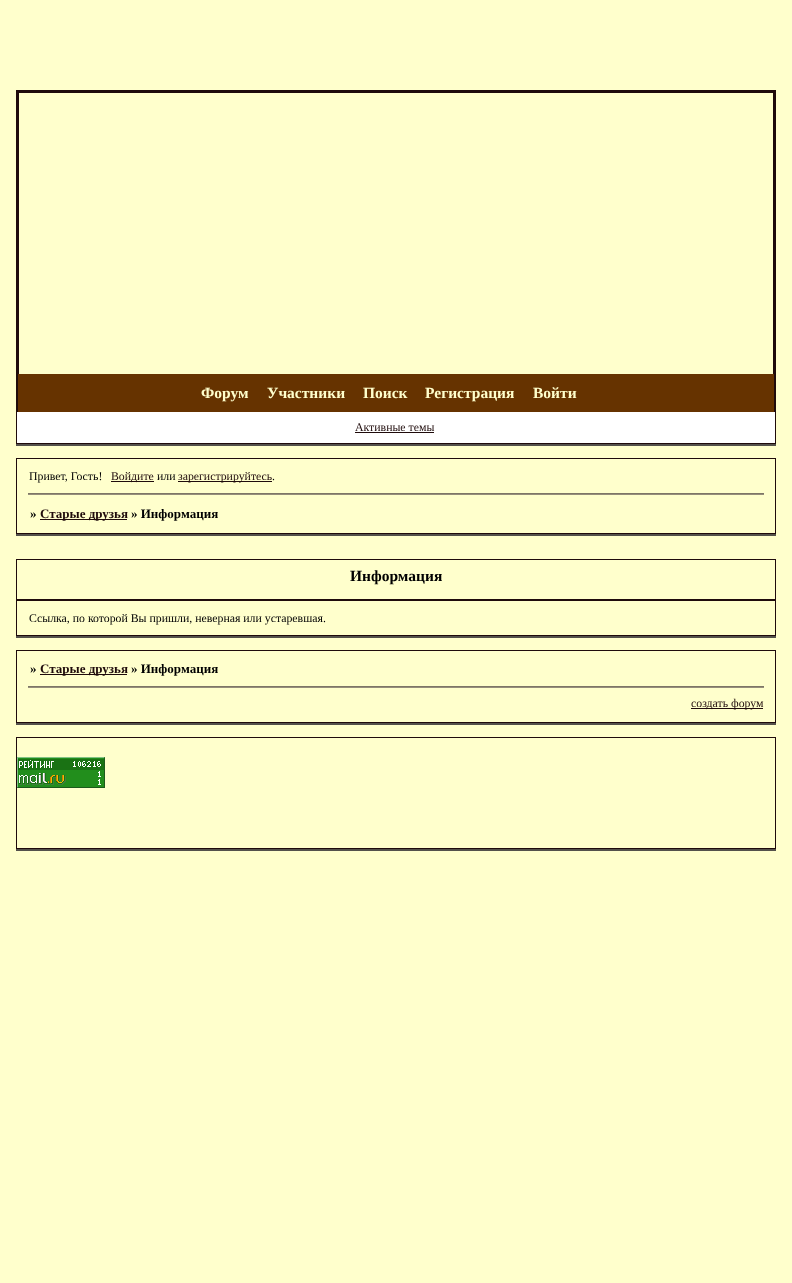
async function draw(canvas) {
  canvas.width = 792;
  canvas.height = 1283;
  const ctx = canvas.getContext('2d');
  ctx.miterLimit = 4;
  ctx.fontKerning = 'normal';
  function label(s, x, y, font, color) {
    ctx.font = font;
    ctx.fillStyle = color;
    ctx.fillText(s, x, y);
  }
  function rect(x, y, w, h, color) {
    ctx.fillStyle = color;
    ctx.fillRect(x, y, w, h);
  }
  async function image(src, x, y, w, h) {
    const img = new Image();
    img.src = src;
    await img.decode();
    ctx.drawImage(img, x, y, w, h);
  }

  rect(0, 0, 792, 1283, '#ffc');
  rect(16, 90, 760, 3, '#1f0b0b');
  rect(773, 90, 3, 284, '#1f0b0b');
  rect(16, 90, 3, 284, '#1f0b0b');
  rect(774, 374, 2, 38, '#1f0b0b');
  rect(16, 374, 2, 38, '#1f0b0b');
  rect(18, 374, 756, 38, '#630');
  label('Форум', 201, 398, 'bold 15.5px Liberation Serif', '#ffc');
  label('Участники', 267, 398, 'bold 15.5px Liberation Serif', '#ffc');
  label('Поиск', 363, 398, 'bold 15.5px Liberation Serif', '#ffc');
  label('Регистрация', 425, 398, 'bold 15.5px Liberation Serif', '#ffc');
  label('Войти', 533, 398, 'bold 15.5px Liberation Serif', '#ffc');
  rect(16, 444, 760, 2, '#54514b');
  rect(17, 412, 758, 31, '#fff');
  rect(775, 412, 1, 32, '#1f0b0b');
  rect(16, 443, 760, 1, '#1f0b0b');
  rect(16, 412, 1, 32, '#1f0b0b');
  label('Активные темы', 355, 431, '11.8px Liberation Serif', '#1f0b0b');
  rect(355, 432, 79, 1, '#1f0b0b');
  rect(16, 458, 760, 1, '#1f0b0b');
  rect(775, 458, 1, 76, '#1f0b0b');
  rect(16, 458, 1, 37, '#1f0b0b');
  label('Привет, Гость!', 29, 480, '11.8px Liberation Serif', '#000');
  rect(111, 481, 43, 1, '#1f0b0b');
  label('Войдите', 111, 480, '11.8px Liberation Serif', '#1f0b0b');
  label('или', 157, 480, '11.8px Liberation Serif', '#000');
  rect(178, 481, 94, 1, '#1f0b0b');
  label('зарегистрируйтесь', 178, 480, '11.8px Liberation Serif', '#1f0b0b');
  label('.', 272, 480, '11.8px Liberation Serif', '#000');
  rect(28, 493, 736, 1, '#7d7666');
  rect(28, 494, 736, 1, '#968e7b');
  rect(16, 534, 760, 2, '#54514b');
  rect(16, 533, 760, 1, '#1f0b0b');
  rect(16, 493, 1, 41, '#1f0b0b');
  label('»', 30, 518, 'bold 13px Liberation Serif', '#000');
  rect(40, 519, 87, 1, '#1f0b0b');
  label('Старые друзья', 40, 518, 'bold 13px Liberation Serif', '#1f0b0b');
  label('» Информация', 131, 518, 'bold 13px Liberation Serif', '#000');
  ctx.strokeStyle = '#1f0b0b';
  ctx.strokeRect(16.5, 559.5, 759, 40);
  label('Информация', 350, 581, 'bold 15.5px Liberation Serif', '#000');
  rect(16, 636, 760, 2, '#54514b');
  ctx.strokeRect(16.5, 600.5, 759, 35);
  label('Ссылка, по которой Вы пришли, неверная или устаревшая.', 29, 622, '11.8px Liberation Serif', '#000');
  rect(16, 650, 760, 1, '#1f0b0b');
  rect(775, 686, 1, 37, '#1f0b0b');
  rect(775, 650, 1, 38, '#1f0b0b');
  rect(16, 722, 760, 1, '#1f0b0b');
  rect(16, 686, 1, 37, '#1f0b0b');
  rect(16, 650, 1, 38, '#1f0b0b');
  label('»', 30, 673, 'bold 13px Liberation Serif', '#000');
  rect(40, 674, 87, 1, '#1f0b0b');
  label('Старые друзья', 40, 673, 'bold 13px Liberation Serif', '#1f0b0b');
  label('» Информация', 131, 673, 'bold 13px Liberation Serif', '#000');
  rect(28, 686, 736, 1, '#7d7666');
  rect(28, 687, 736, 1, '#968e7b');
  rect(16, 723, 760, 2, '#54514b');
  rect(691, 708, 72, 1, '#1f0b0b');
  label('создать форум', 691, 707, '11.8px Liberation Serif', '#1f0b0b');
  rect(16, 849, 760, 2, '#54514b');
  ctx.strokeRect(16.5, 737.5, 759, 111);
  await image('assets/img1.png', 17, 757, 88, 31);
}

draw(document.querySelector('canvas'));
